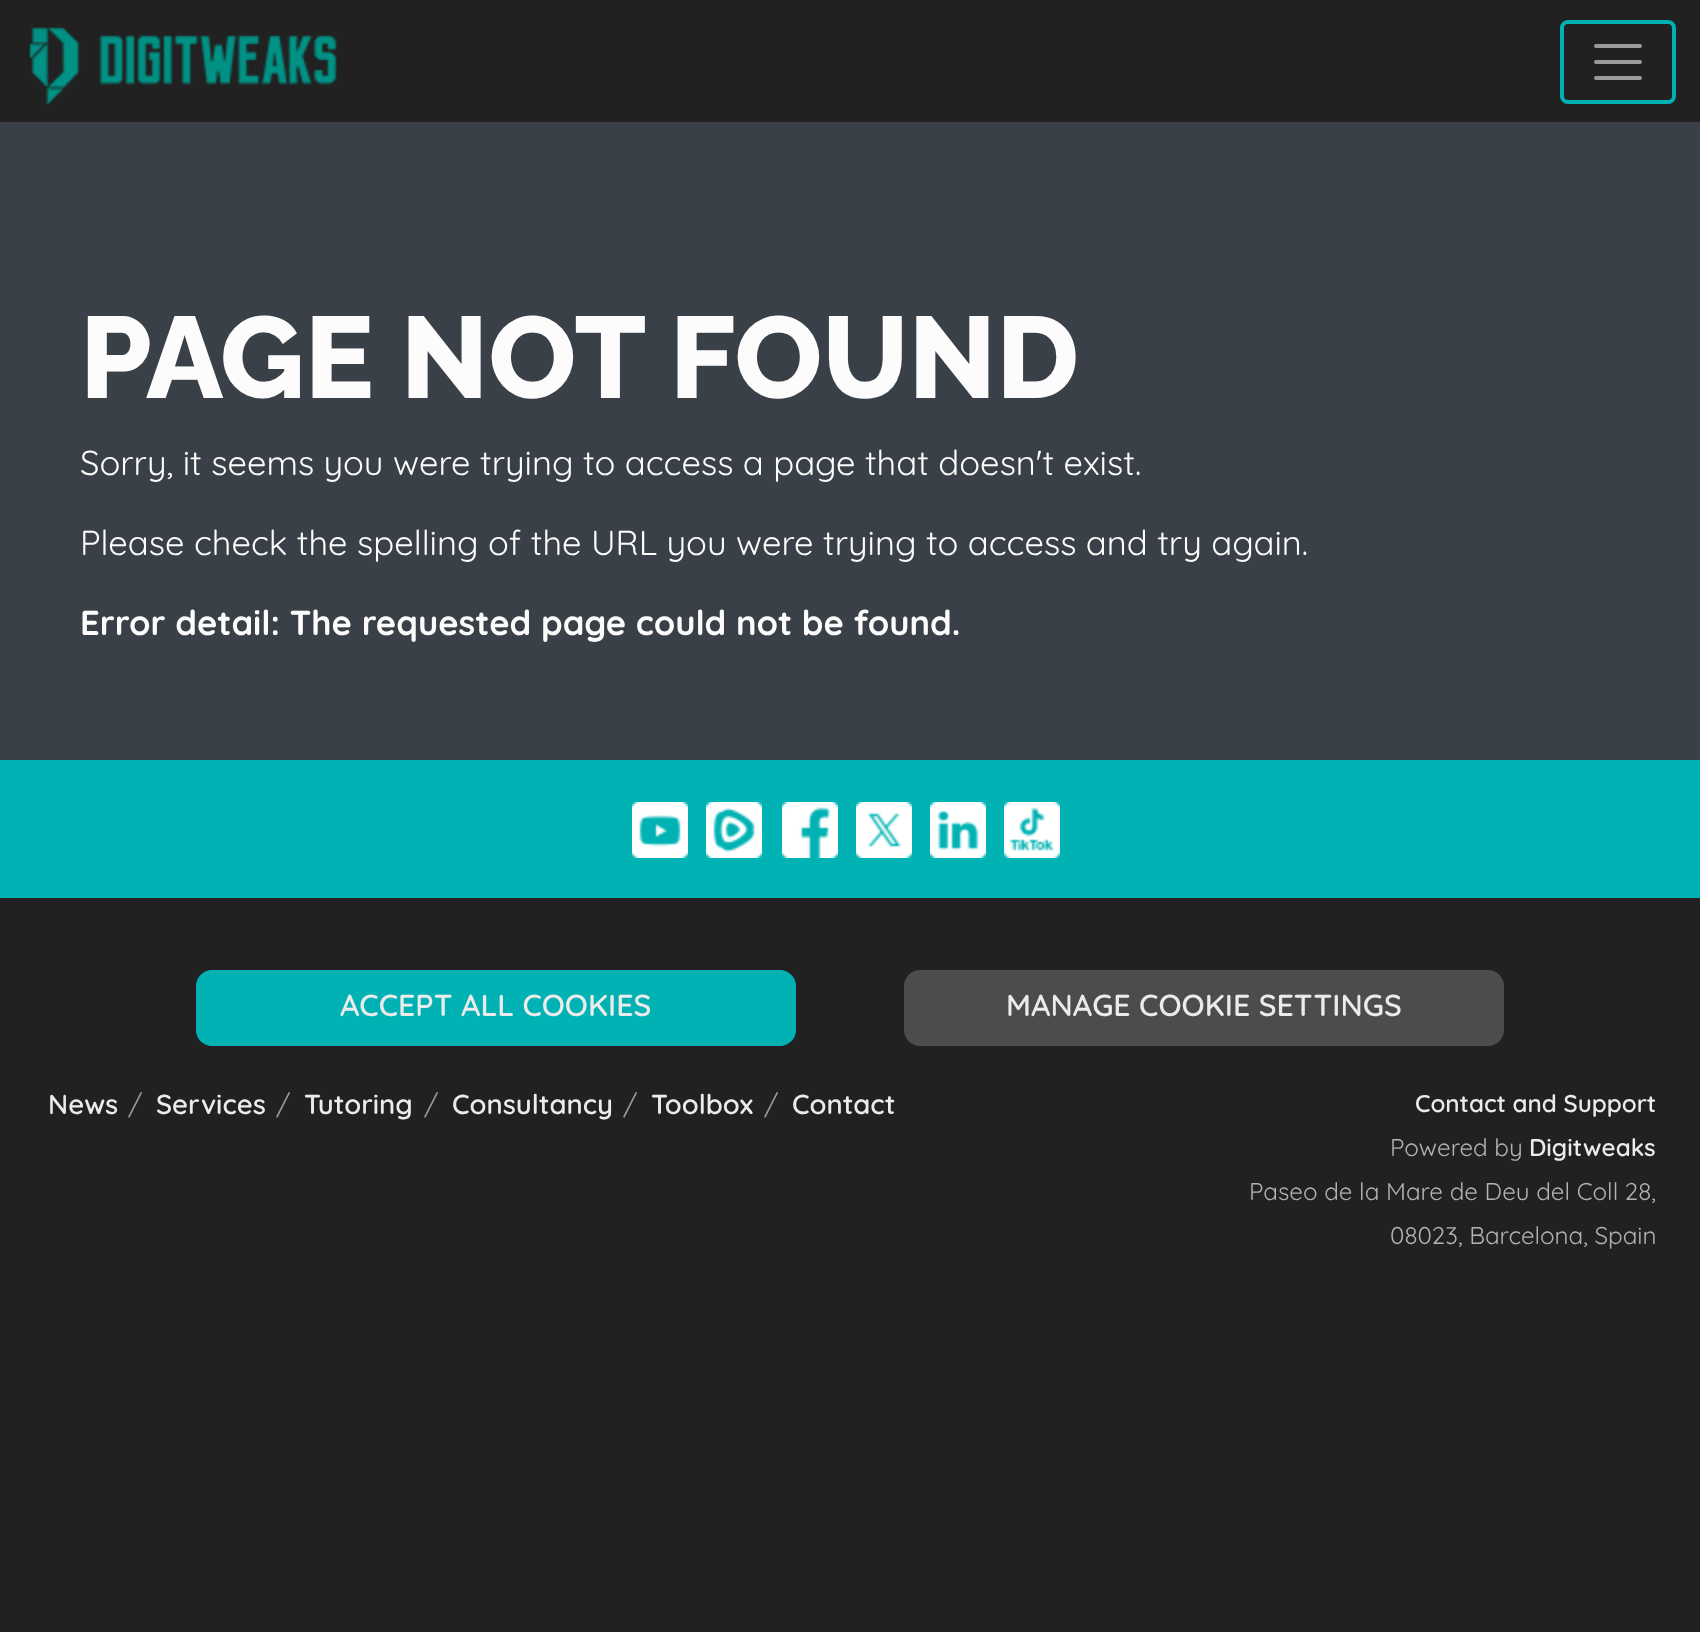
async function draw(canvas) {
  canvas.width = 1700;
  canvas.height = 1632;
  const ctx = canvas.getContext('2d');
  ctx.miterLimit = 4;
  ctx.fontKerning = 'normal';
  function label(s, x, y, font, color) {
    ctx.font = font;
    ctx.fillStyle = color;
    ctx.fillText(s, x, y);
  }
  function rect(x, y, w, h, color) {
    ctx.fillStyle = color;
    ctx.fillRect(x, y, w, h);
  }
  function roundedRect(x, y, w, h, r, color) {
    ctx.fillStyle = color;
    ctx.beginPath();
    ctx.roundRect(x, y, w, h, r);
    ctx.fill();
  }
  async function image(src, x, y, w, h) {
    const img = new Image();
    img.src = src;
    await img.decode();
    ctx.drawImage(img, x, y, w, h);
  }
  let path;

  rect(0, 0, 1700, 1632, '#212121');
  await image('assets/img1.png', 29, 27, 308, 78);
  ctx.beginPath();
  ctx.roundRect(1562, 22, 112, 80, 6);
  ctx.strokeStyle = '#00b2b3';
  ctx.lineWidth = 4;
  ctx.stroke();
  path = new Path2D('M1596 46H1640M1596 62H1640M1596 78H1640');
  ctx.strokeStyle = '#9b9b9b';
  ctx.lineCap = 'round';
  ctx.stroke(path);
  rect(0, 122, 1700, 638, '#3a4047');
  label('PAGE NOT FOUND', 80, 398, '800 115.5px Raleway', '#fcfcfc');
  label('Sorry, it seems you were trying to access a page that doesn\'t exist.', 80, 475, '34.55px Quicksand', '#fcfcfc');
  label('Please check the spelling of the URL you were trying to access and try again.', 80, 555, '34.55px Quicksand', '#fcfcfc');
  label('Error detail: The requested page could not be found.', 80, 635, 'bold 34.55px Quicksand', '#fcfcfc');
  rect(0, 760, 1700, 138, '#00b2b3');
  await image('assets/img2.png', 632, 802, 56, 56);
  await image('assets/img3.png', 706, 802, 56, 56);
  await image('assets/img4.png', 782, 802, 56, 56);
  await image('assets/img5.png', 856, 802, 56, 56);
  await image('assets/img6.png', 930, 802, 56, 56);
  await image('assets/img7.png', 1004, 802, 56, 56);
  roundedRect(196, 970, 600, 76, 16, '#00b2b3');
  label('ACCEPT ALL COOKIES', 340, 1016, '600 30.4px Quicksand', '#ebebeb');
  roundedRect(904, 970, 600, 76, 16, '#4c4c4c');
  label('MANAGE COOKIE SETTINGS', 1006, 1016, '600 30.4px Quicksand', '#ebebeb');
  label('News', 48, 1114, '600 27.5px Quicksand', '#ebebeb');
  label('/', 128, 1114, '27.5px Quicksand', '#999');
  label('Services', 156, 1114, '600 27.5px Quicksand', '#ebebeb');
  label('/', 276, 1114, '27.5px Quicksand', '#999');
  label('Tutoring', 304, 1114, '600 27.5px Quicksand', '#ebebeb');
  label('/', 424, 1114, '27.5px Quicksand', '#999');
  label('Consultancy', 452, 1114, '600 27.5px Quicksand', '#ebebeb');
  label('/', 623, 1114, '27.5px Quicksand', '#999');
  label('Toolbox', 651, 1114, '600 27.5px Quicksand', '#ebebeb');
  label('/', 764, 1114, '27.5px Quicksand', '#999');
  label('Contact', 792, 1114, '600 27.5px Quicksand', '#ebebeb');
  label('Contact and Support', 1415, 1112, '600 24.2px Quicksand', '#ebebeb');
  label('Powered by', 1390, 1156, '24.2px Quicksand', '#b5b2ae');
  label('Digitweaks', 1529, 1156, '600 24.2px Quicksand', '#ebebeb');
  label('Paseo de la Mare de Deu del Coll 28,', 1249, 1200, '24.2px Quicksand', '#b5b2ae');
  label('08023, Barcelona, Spain', 1390, 1244, '24.2px Quicksand', '#b5b2ae');
}

draw(document.querySelector('canvas'));
